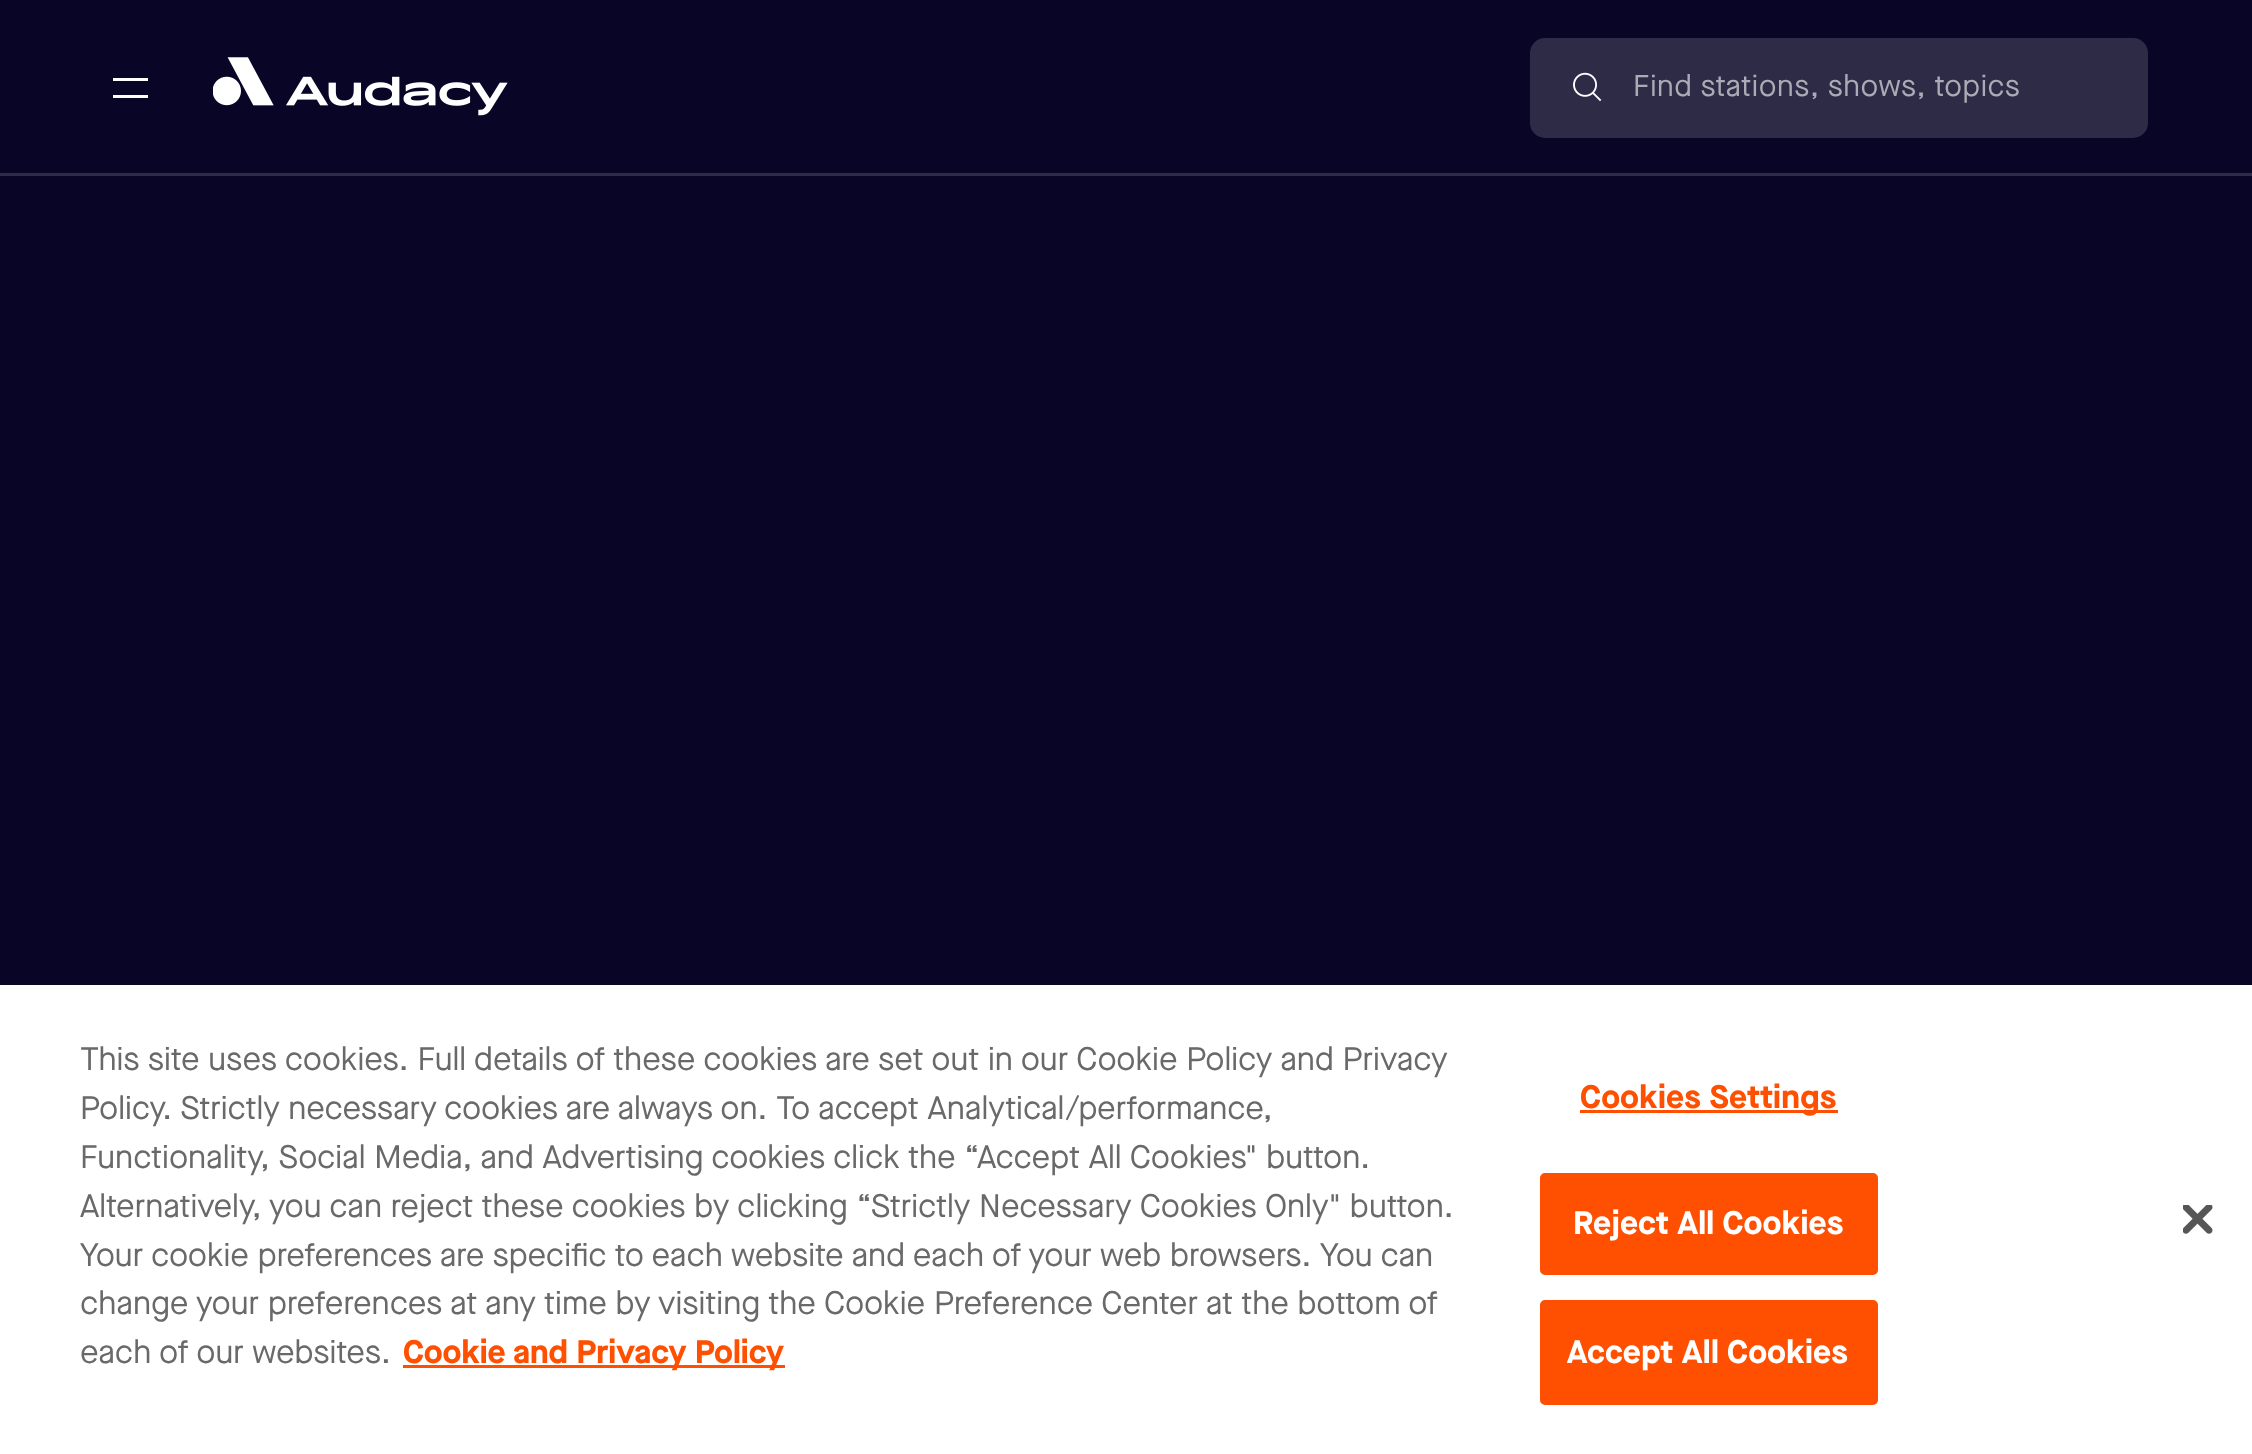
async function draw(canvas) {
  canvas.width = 2252;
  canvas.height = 1454;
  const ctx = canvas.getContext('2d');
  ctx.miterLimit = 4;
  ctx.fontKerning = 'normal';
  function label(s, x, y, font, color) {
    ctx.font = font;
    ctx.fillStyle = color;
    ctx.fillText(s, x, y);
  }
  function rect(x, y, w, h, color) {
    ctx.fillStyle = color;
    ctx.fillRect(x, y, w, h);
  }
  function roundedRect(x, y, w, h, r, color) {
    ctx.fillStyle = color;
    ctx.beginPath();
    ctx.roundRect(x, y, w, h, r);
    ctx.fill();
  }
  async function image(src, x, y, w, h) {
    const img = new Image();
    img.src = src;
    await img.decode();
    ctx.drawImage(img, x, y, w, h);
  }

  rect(0, 0, 2252, 1454, '#090527');
  rect(0, 173, 2252, 3, '#2e2b47');
  rect(113, 78, 35, 3, '#fff');
  rect(113, 95, 35, 3, '#fff');
  await image('assets/img1.png', 213, 57, 295, 59);
  roundedRect(1530, 38, 618, 100, 15, '#2e2b47');
  await image('assets/img2.png', 1573, 72, 29, 30);
  ctx.letterSpacing = '0.6px';
  label('Find stations, shows, topics', 1633, 96, '30px Maison Neue', '#abaab5');
  rect(0, 985, 2252, 469, '#fff');
  ctx.letterSpacing = '0px';
  label('This site uses cookies. Full details of these cookies are set out in our Cookie Policy and Privacy', 80, 1070, '32.5px Maison Neue', '#696969');
  ctx.wordSpacing = '-0.5px';
  label('Policy. Strictly necessary cookies are always on.', 80, 1119, '32.5px Maison Neue', '#696969');
  ctx.wordSpacing = '0px';
  label('To accept Analytical/performance,', 776, 1119, '32.5px Maison Neue', '#696969');
  label('Functionality, Social Media, and Advertising cookies click the “Accept All Cookies" button.', 80, 1168, '32.5px Maison Neue', '#696969');
  label('Alternatively, you can reject these cookies by clicking “Strictly Necessary Cookies Only" button.', 80, 1217, '32.5px Maison Neue', '#696969');
  ctx.wordSpacing = '-0.1px';
  label('Your cookie preferences are specific to each website and each of your web browsers.', 80, 1266, '32.5px Maison Neue', '#696969');
  ctx.wordSpacing = '0px';
  label('You can', 1320, 1266, '32.5px Maison Neue', '#696969');
  label('change your preferences at any time by visiting the Cookie Preference Center at the bottom of', 80, 1314, '32.5px Maison Neue', '#696969');
  label('each of our websites.', 80, 1363, '32.5px Maison Neue', '#696969');
  rect(403, 1365, 382, 3, '#fe5000');
  label('Cookie and Privacy Policy', 403, 1363, 'bold 32.5px Maison Neue', '#fe5000');
  rect(1580, 1110, 258, 3, '#fe5000');
  ctx.letterSpacing = '0.3px';
  label('Cookies Settings', 1580, 1108, 'bold 32.5px Maison Neue', '#fe5000');
  ctx.beginPath();
  ctx.roundRect(1541.5, 1174.5, 335, 99, 3.5);
  ctx.fill();
  ctx.strokeStyle = '#fe5000';
  ctx.lineWidth = 3;
  ctx.stroke();
  label('Reject All Cookies', 1573, 1234, 'bold 32.5px Maison Neue', '#fff');
  ctx.fillStyle = '#fe5000';
  ctx.beginPath();
  ctx.roundRect(1541.5, 1301.5, 335, 102, 3.5);
  ctx.fill();
  ctx.stroke();
  label('Accept All Cookies', 1567, 1363, 'bold 32.5px Maison Neue', '#fff');
  await image('assets/img3.png', 2183, 1205, 30, 29);
}

draw(document.querySelector('canvas'));
